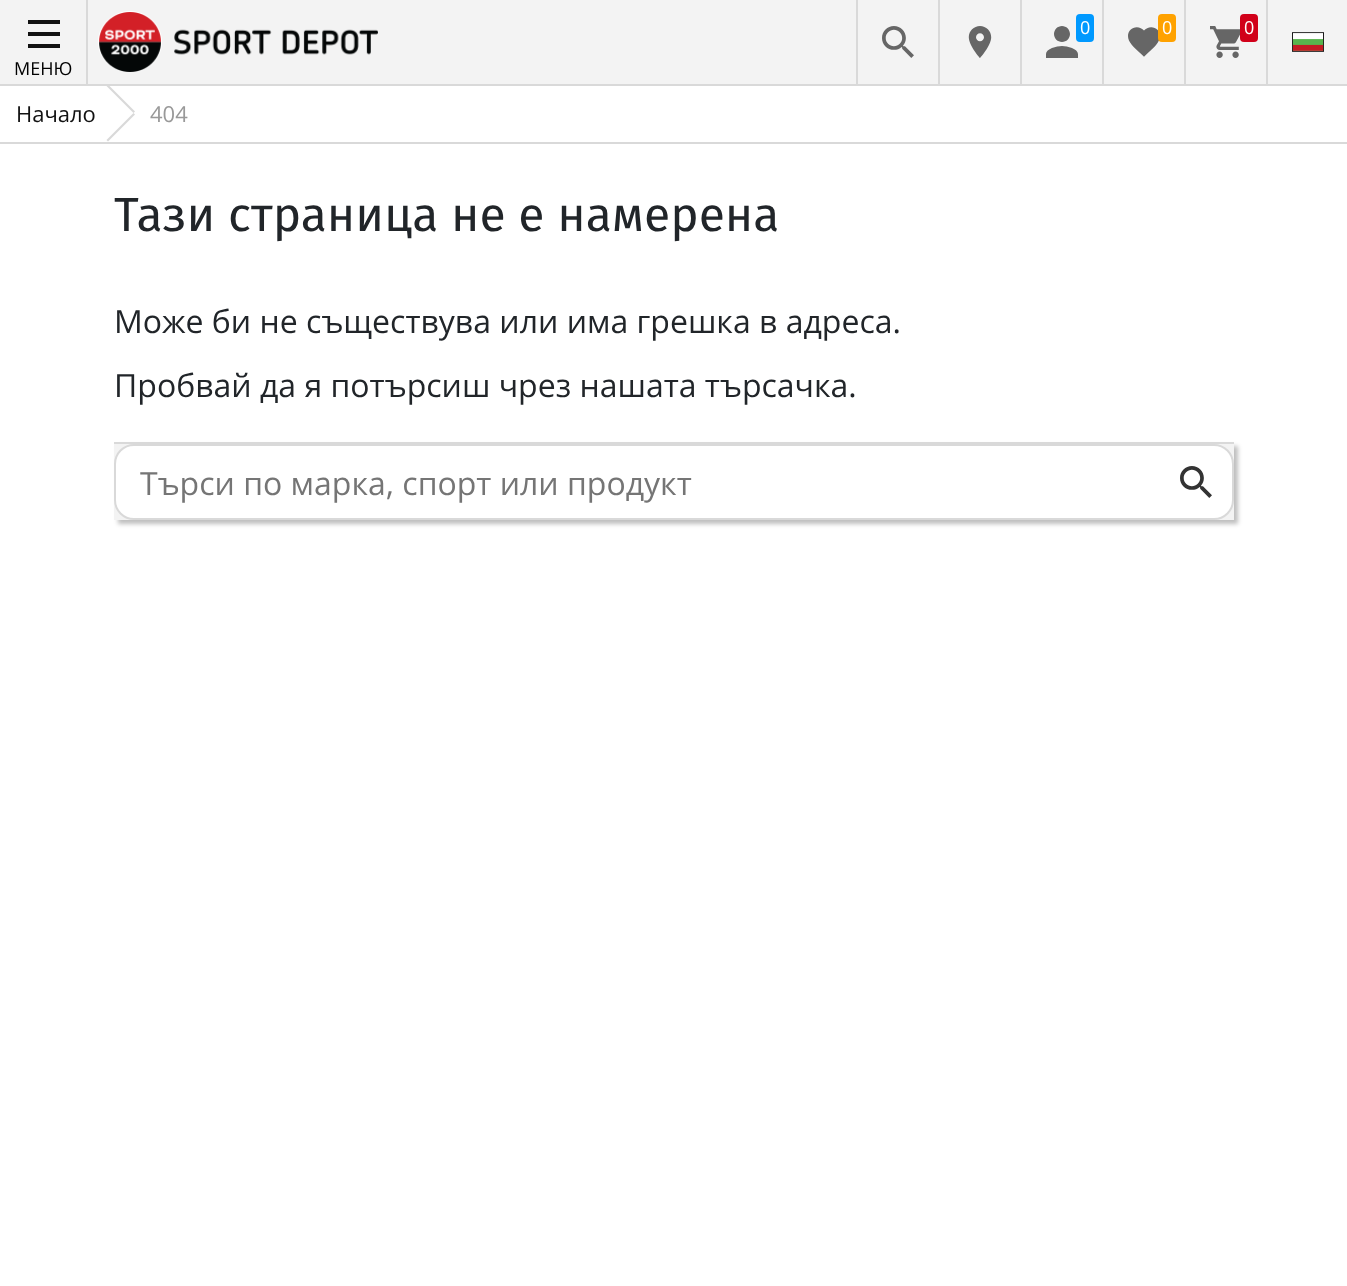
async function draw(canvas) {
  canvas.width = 1347;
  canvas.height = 1286;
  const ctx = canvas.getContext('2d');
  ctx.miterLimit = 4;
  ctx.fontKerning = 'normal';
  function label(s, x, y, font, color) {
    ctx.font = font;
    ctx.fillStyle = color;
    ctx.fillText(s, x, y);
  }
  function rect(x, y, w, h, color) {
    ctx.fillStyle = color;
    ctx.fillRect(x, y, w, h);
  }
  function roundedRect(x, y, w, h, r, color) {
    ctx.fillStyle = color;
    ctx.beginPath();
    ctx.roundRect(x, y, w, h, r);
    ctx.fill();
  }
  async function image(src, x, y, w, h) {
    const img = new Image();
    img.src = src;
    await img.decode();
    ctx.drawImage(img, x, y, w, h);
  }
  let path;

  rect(0, 0, 1347, 1286, '#fff');
  rect(0, 0, 1347, 84, '#f3f3f3');
  ctx.fillStyle = '#d9d9d9';
  path = new Path2D('M106.5 86L108 84.5L135 111.5L133.5 113ZM106.5 140L133.5 113L135 114.5L108 141.5Z');
  ctx.fill(path);
  rect(0, 84, 1347, 2, '#d9d9d9');
  rect(856, 0, 2, 84, '#d9d9d9');
  await image('assets/img1.png', 882, 26, 32, 32);
  rect(938, 0, 2, 84, '#d9d9d9');
  await image('assets/img2.png', 968, 26, 24, 32);
  rect(1020, 0, 2, 84, '#d9d9d9');
  await image('assets/img3.png', 1046, 26, 32, 32);
  roundedRect(1076, 14, 18, 28, 4, '#09f');
  label('0', 1080, 34, '18px Open Sans', '#fff');
  rect(1102, 0, 2, 84, '#d9d9d9');
  await image('assets/img4.png', 1128, 27, 31, 30);
  roundedRect(1158, 14, 18, 28, 4, '#ffa200');
  label('0', 1162, 34, '18px Open Sans', '#fff');
  rect(1184, 0, 2, 84, '#d9d9d9');
  await image('assets/img5.png', 1210, 26, 30, 32);
  roundedRect(1240, 14, 18, 28, 4, '#d10019');
  label('0', 1244, 34, '18px Open Sans', '#fff');
  rect(1266, 0, 2, 84, '#d9d9d9');
  await image('assets/img6.png', 1292, 32, 32, 20);
  rect(86, 0, 2, 84, '#d9d9d9');
  rect(28, 32, 32, 4, '#111');
  rect(28, 20, 32, 4, '#111');
  rect(28, 44, 32, 4, '#111');
  label('МЕНЮ', 14, 75, '18px Open Sans', '#000');
  await image('assets/img7.png', 98, 11, 280, 61);
  rect(0, 142, 1347, 2, '#d9d9d9');
  label('Начало', 16, 122, '22px Open Sans', '#111');
  label('404', 150, 122, '22px Open Sans', '#999');
  label('Тази страница не е намерена', 114, 231, '48px Fira Sans', '#212529');
  label('Може би не съществува или има грешка в адреса.', 114, 333, '32px Open Sans', '#212529');
  label('Пробвай да я потърсиш чрез нашата търсачка.', 114, 397, '32px Open Sans', '#212529');
  ctx.fillStyle = '#00000040';
  ctx.filter = 'blur(2px)';
  ctx.beginPath();
  ctx.rect(118, 446, 1120, 78);
  ctx.fill();
  ctx.filter = 'none';
  rect(114, 444, 1120, 76, '#f3f3f3');
  rect(114, 442, 1120, 2, '#d9d9d9');
  ctx.fillStyle = '#fff';
  ctx.beginPath();
  ctx.roundRect(115, 445, 1118, 74, 19);
  ctx.fill();
  ctx.strokeStyle = '#d9d9d9';
  ctx.lineWidth = 2;
  ctx.stroke();
  label('Търси по марка, спорт или продукт', 140, 495, '32px Open Sans', '#757575');
  await image('assets/img8.png', 1180, 466, 32, 32);
}

draw(document.querySelector('canvas'));
